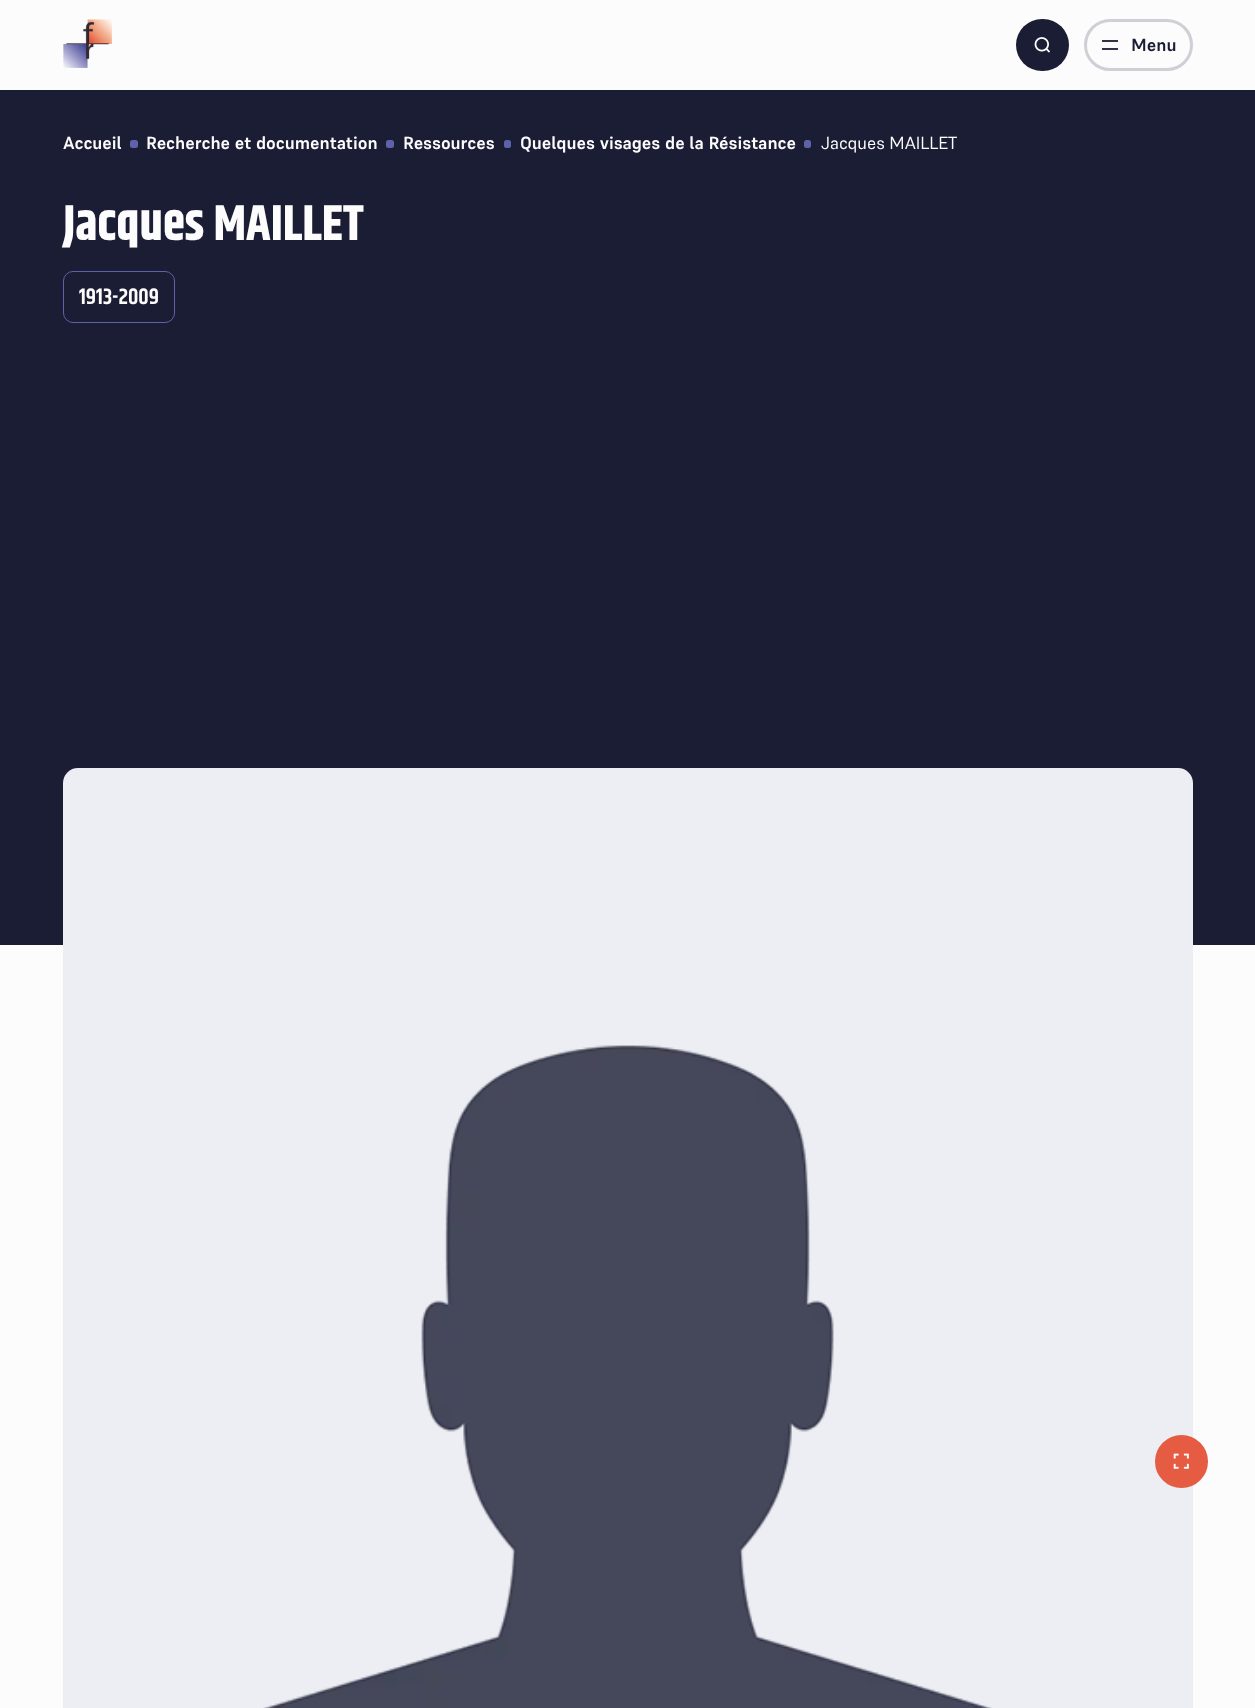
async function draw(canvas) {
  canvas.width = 1255;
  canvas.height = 1708;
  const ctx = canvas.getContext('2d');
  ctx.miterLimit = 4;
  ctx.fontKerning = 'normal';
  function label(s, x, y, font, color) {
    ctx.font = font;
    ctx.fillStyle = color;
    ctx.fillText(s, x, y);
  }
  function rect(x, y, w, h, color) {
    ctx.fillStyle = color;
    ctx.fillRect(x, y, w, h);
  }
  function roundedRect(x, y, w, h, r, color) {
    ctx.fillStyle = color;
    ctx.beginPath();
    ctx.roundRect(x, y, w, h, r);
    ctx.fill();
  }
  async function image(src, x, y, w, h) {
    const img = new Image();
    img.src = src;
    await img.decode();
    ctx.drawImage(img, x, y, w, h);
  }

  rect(0, 0, 1255, 1708, '#fcfcfd');
  await image('assets/img1.png', 63, 19, 49, 49);
  roundedRect(1016, 19, 53, 52, 26, '#1b1d34');
  await image('assets/img2.png', 1034, 37, 16, 16);
  ctx.beginPath();
  ctx.roundRect(1085.5, 20.5, 106, 49, 24.5);
  ctx.strokeStyle = '#cfcfd5';
  ctx.lineWidth = 3;
  ctx.stroke();
  rect(1102, 40, 16, 2, '#323348');
  rect(1102, 48, 16, 2, '#323348');
  label('Menu', 1131, 51, 'bold 17.5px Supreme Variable', '#1b1d34');
  rect(0, 90, 1255, 855, '#1b1d34');
  label('Accueil', 63, 149, 'bold 17.5px Supreme Variable', '#fcfcfd');
  roundedRect(130, 140, 8, 8, 2.5, '#5e63a8');
  label('Recherche et documentation', 146, 149, 'bold 17.5px Supreme Variable', '#fcfcfd');
  roundedRect(386, 140, 8, 8, 2.5, '#5e63a8');
  label('Ressources', 403, 149, 'bold 17.5px Supreme Variable', '#fcfcfd');
  roundedRect(504, 140, 7, 8, 2.5, '#5e63a8');
  label('Quelques visages de la Résistance', 520, 149, 'bold 17.5px Supreme Variable', '#fcfcfd');
  roundedRect(804, 140, 7, 8, 2.5, '#5e63a8');
  label('Jacques MAILLET', 821, 149, '17.5px Supreme Variable', '#fcfcfd');
  label('Jacques MAILLET', 63, 240, 'bold 50.25px Khand', '#fcfcfd');
  ctx.beginPath();
  ctx.roundRect(63.5, 271.5, 111, 51, 9.5);
  ctx.strokeStyle = '#5e63a8';
  ctx.lineWidth = 1;
  ctx.stroke();
  label('1913-2009', 79, 304, '600 22.5px Khand', '#fcfcfd');
  roundedRect(63, 768, 1130, 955, 15, '#edeef3');
  await image('assets/img3.png', 263, 1045, 729, 663);
  ctx.fillStyle = '#e65c43';
  ctx.beginPath();
  ctx.arc(1181.5, 1461.5, 25, 0, 2 * Math.PI);
  ctx.fill();
  ctx.strokeStyle = '#e65c43';
  ctx.lineWidth = 3;
  ctx.stroke();
  await image('assets/img4.png', 1173, 1453, 16, 16);
}

draw(document.querySelector('canvas'));
